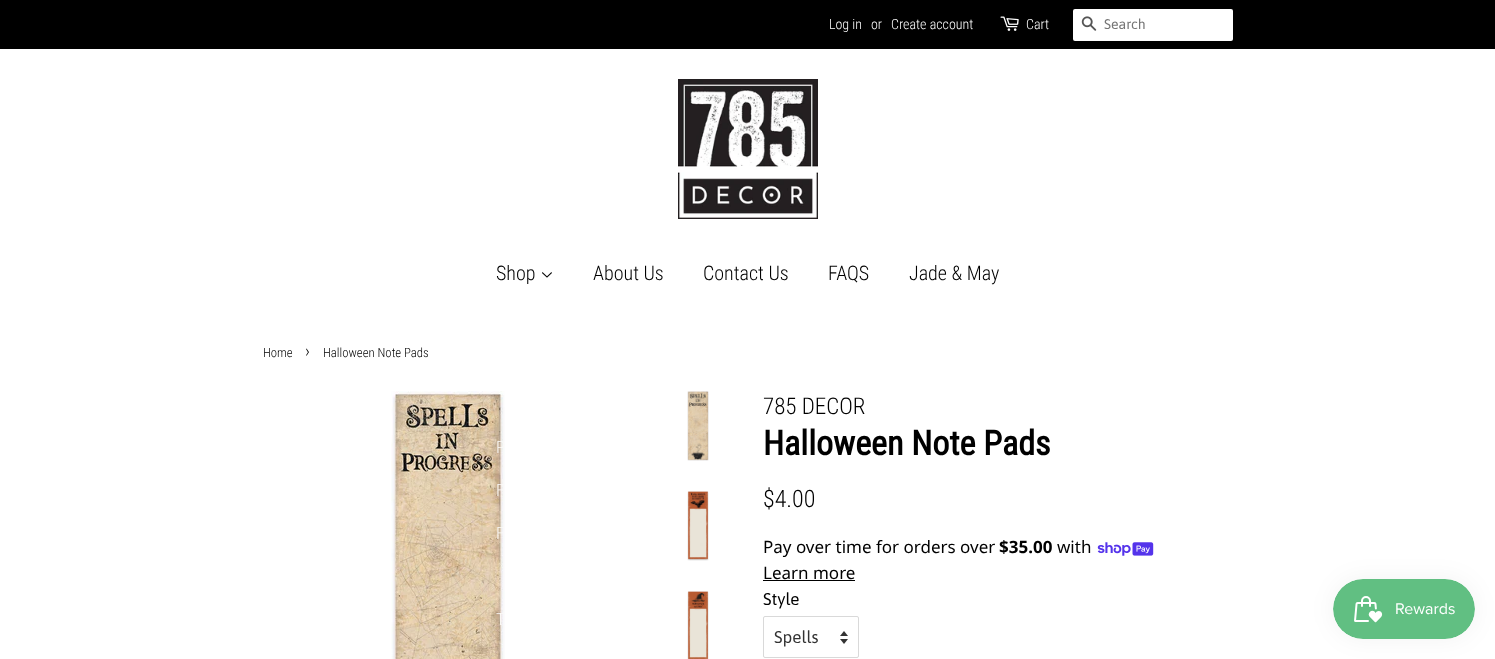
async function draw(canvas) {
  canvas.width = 1495;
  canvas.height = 659;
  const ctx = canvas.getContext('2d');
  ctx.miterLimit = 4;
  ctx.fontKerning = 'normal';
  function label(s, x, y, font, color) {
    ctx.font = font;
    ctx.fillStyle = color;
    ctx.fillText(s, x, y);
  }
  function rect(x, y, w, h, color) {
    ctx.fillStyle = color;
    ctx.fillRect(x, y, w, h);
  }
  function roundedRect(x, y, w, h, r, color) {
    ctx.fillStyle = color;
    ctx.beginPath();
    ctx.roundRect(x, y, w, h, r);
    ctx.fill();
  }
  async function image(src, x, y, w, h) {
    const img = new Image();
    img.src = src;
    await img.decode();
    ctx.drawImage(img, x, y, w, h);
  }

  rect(0, 0, 1495, 659, '#fff');
  rect(0, 0, 1495, 49, '#000');
  label('Log in', 829, 29, '300 14px Roboto Condensed', '#fff');
  label('or', 871, 29, '300 14px Roboto Condensed', '#fff');
  label('Create account', 891, 29, '300 14px Roboto Condensed', '#fff');
  await image('assets/img1.png', 1000, 16, 19, 15);
  label('Cart', 1026, 29, '300 14px Roboto Condensed', '#fff');
  roundedRect(1073, 9, 160, 32, 2, '#fff');
  await image('assets/img2.png', 1081, 16, 16, 15);
  label('Search', 1104, 29, '14px Asap', '#757575');
  await image('assets/img3.png', 678, 79, 140, 140);
  label('Shop', 496, 280, '300 20px Roboto Condensed', '#000');
  await image('assets/img4.png', 542, 272, 10, 6);
  await image('assets/img5.png', 391, 391, 114, 268);
  label('P', 496, 453, '300 17px Roboto Condensed', '#fbfaf8');
  label('F', 496, 496, '300 17px Roboto Condensed', '#fbfaf8');
  label('F', 496, 539, '300 17px Roboto Condensed', '#fbfaf8');
  label('T', 496, 625, '300 17px Roboto Condensed', '#fbfaf8');
  label('About Us', 593, 280, '300 20px Roboto Condensed', '#000');
  label('Contact Us', 703, 280, '300 20px Roboto Condensed', '#000');
  label('FAQS', 828, 280, '300 20px Roboto Condensed', '#000');
  label('Jade & May', 909, 280, '300 20px Roboto Condensed', '#000');
  label('Home', 263, 357, '300 12.75px Roboto Condensed', '#000');
  label('›', 305, 357, '300 18px Roboto Condensed', '#000');
  label('Halloween Note Pads', 323, 357, '300 12.75px Roboto Condensed', '#000');
  await image('assets/img6.png', 687, 391, 22, 70);
  await image('assets/img7.png', 687, 491, 22, 70);
  await image('assets/img8.png', 687, 591, 22, 68);
  label('785 DECOR', 763, 414, '300 23px Roboto Condensed', '#000');
  label('Halloween Note Pads', 763, 455, 'bold 34px Roboto Condensed', '#000');
  label('$4.00', 763, 507, '300 24px Roboto Condensed', '#000');
  label('Pay over time for orders over', 763, 553, '17px Noto Sans', '#000');
  label('$35.00', 999, 553, 'bold 17px Noto Sans', '#000');
  label('with', 1057, 553, '17px Noto Sans', '#000');
  await image('assets/img9.png', 1097, 542, 57, 14);
  label('Learn more', 763, 579, '17px Noto Sans', '#000');
  rect(763, 580, 92, 1, '#000');
  label('Style', 763, 605, '17px Asap', '#000');
  await image('assets/img10.png', 840, 631, 8, 13);
  ctx.beginPath();
  ctx.roundRect(763.5, 616.5, 95, 41, 1.5);
  ctx.strokeStyle = '#d9d9d9';
  ctx.stroke();
  label('Spells', 774, 643, '17px Asap', '#333');
  ctx.fillStyle = '#0000000d';
  ctx.filter = 'blur(12.5px)';
  ctx.beginPath();
  ctx.roundRect(1333, 579, 142, 60, 30);
  ctx.fill();
  ctx.filter = 'none';
  await image('assets/img11.png', 1333, 579, 142, 60);
}

draw(document.querySelector('canvas'));
